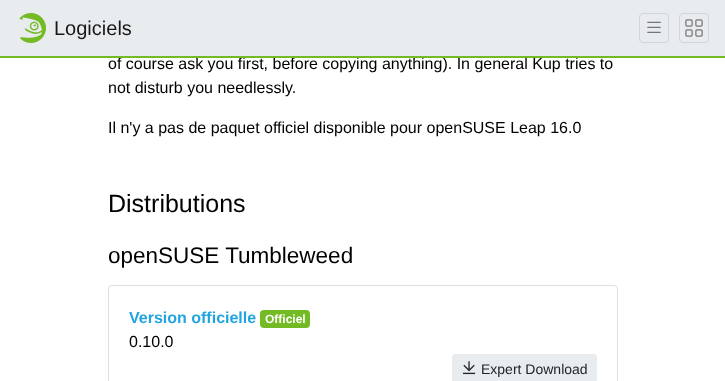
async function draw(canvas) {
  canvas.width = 725;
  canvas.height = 381;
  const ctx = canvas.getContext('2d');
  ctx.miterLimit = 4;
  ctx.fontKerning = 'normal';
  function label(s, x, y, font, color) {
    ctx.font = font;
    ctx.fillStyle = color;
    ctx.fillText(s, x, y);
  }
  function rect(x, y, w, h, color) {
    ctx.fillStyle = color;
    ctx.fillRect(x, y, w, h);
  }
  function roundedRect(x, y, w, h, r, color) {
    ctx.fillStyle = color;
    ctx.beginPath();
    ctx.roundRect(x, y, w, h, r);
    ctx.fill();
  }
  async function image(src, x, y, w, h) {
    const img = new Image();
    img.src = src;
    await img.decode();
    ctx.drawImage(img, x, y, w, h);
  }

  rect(0, 0, 725, 381, '#fff');
  rect(0, 0, 725, 56, '#e9ecef');
  label('of course ask you first, before copying anything). In general Kup tries to', 108, 69, '16px Liberation Sans', '#000');
  rect(0, 56, 725, 2, '#73ba25');
  await image('assets/img1.png', 19, 13, 27, 30);
  label('Logiciels', 54, 35, '20px Liberation Sans', '#171818');
  ctx.beginPath();
  ctx.roundRect(639.5, 13.5, 29, 29, 3.5);
  ctx.strokeStyle = '#d2d4d7';
  ctx.stroke();
  await image('assets/img2.png', 647, 21, 14, 12);
  ctx.beginPath();
  ctx.roundRect(679.5, 13.5, 29, 29, 3.5);
  ctx.stroke();
  await image('assets/img3.png', 685, 19, 18, 18);
  label('not disturb you needlessly.', 108, 93, '16px Liberation Sans', '#000');
  label('Il n\'y a pas de paquet officiel disponible pour openSUSE Leap 16.0', 108, 133, '16px Liberation Sans', '#000');
  label('Distributions', 108, 212, '25px Liberation Sans', '#000');
  label('openSUSE Tumbleweed', 108, 263, '22.5px Liberation Sans', '#000');
  ctx.beginPath();
  ctx.roundRect(108.5, 285.5, 509, 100, 3.5);
  ctx.strokeStyle = '#dfdfdf';
  ctx.stroke();
  label('Version officielle', 129, 323, 'bold 16px Liberation Sans', '#21a4df');
  roundedRect(260, 310, 50, 18, 4, '#73ba25');
  label('Officiel', 265, 323, 'bold 12px Liberation Sans', '#fff');
  label('0.10.0', 129, 347, '16px Liberation Sans', '#000');
  ctx.fillStyle = '#e9ecef';
  ctx.beginPath();
  ctx.roundRect(452.5, 354.5, 144, 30, 2.5);
  ctx.fill();
  ctx.strokeStyle = '#e9ecef';
  ctx.stroke();
  await image('assets/img4.png', 463, 361, 13, 14);
  label('Expert Download', 481, 374, '14px Liberation Sans', '#212529');
}

draw(document.querySelector('canvas'));
